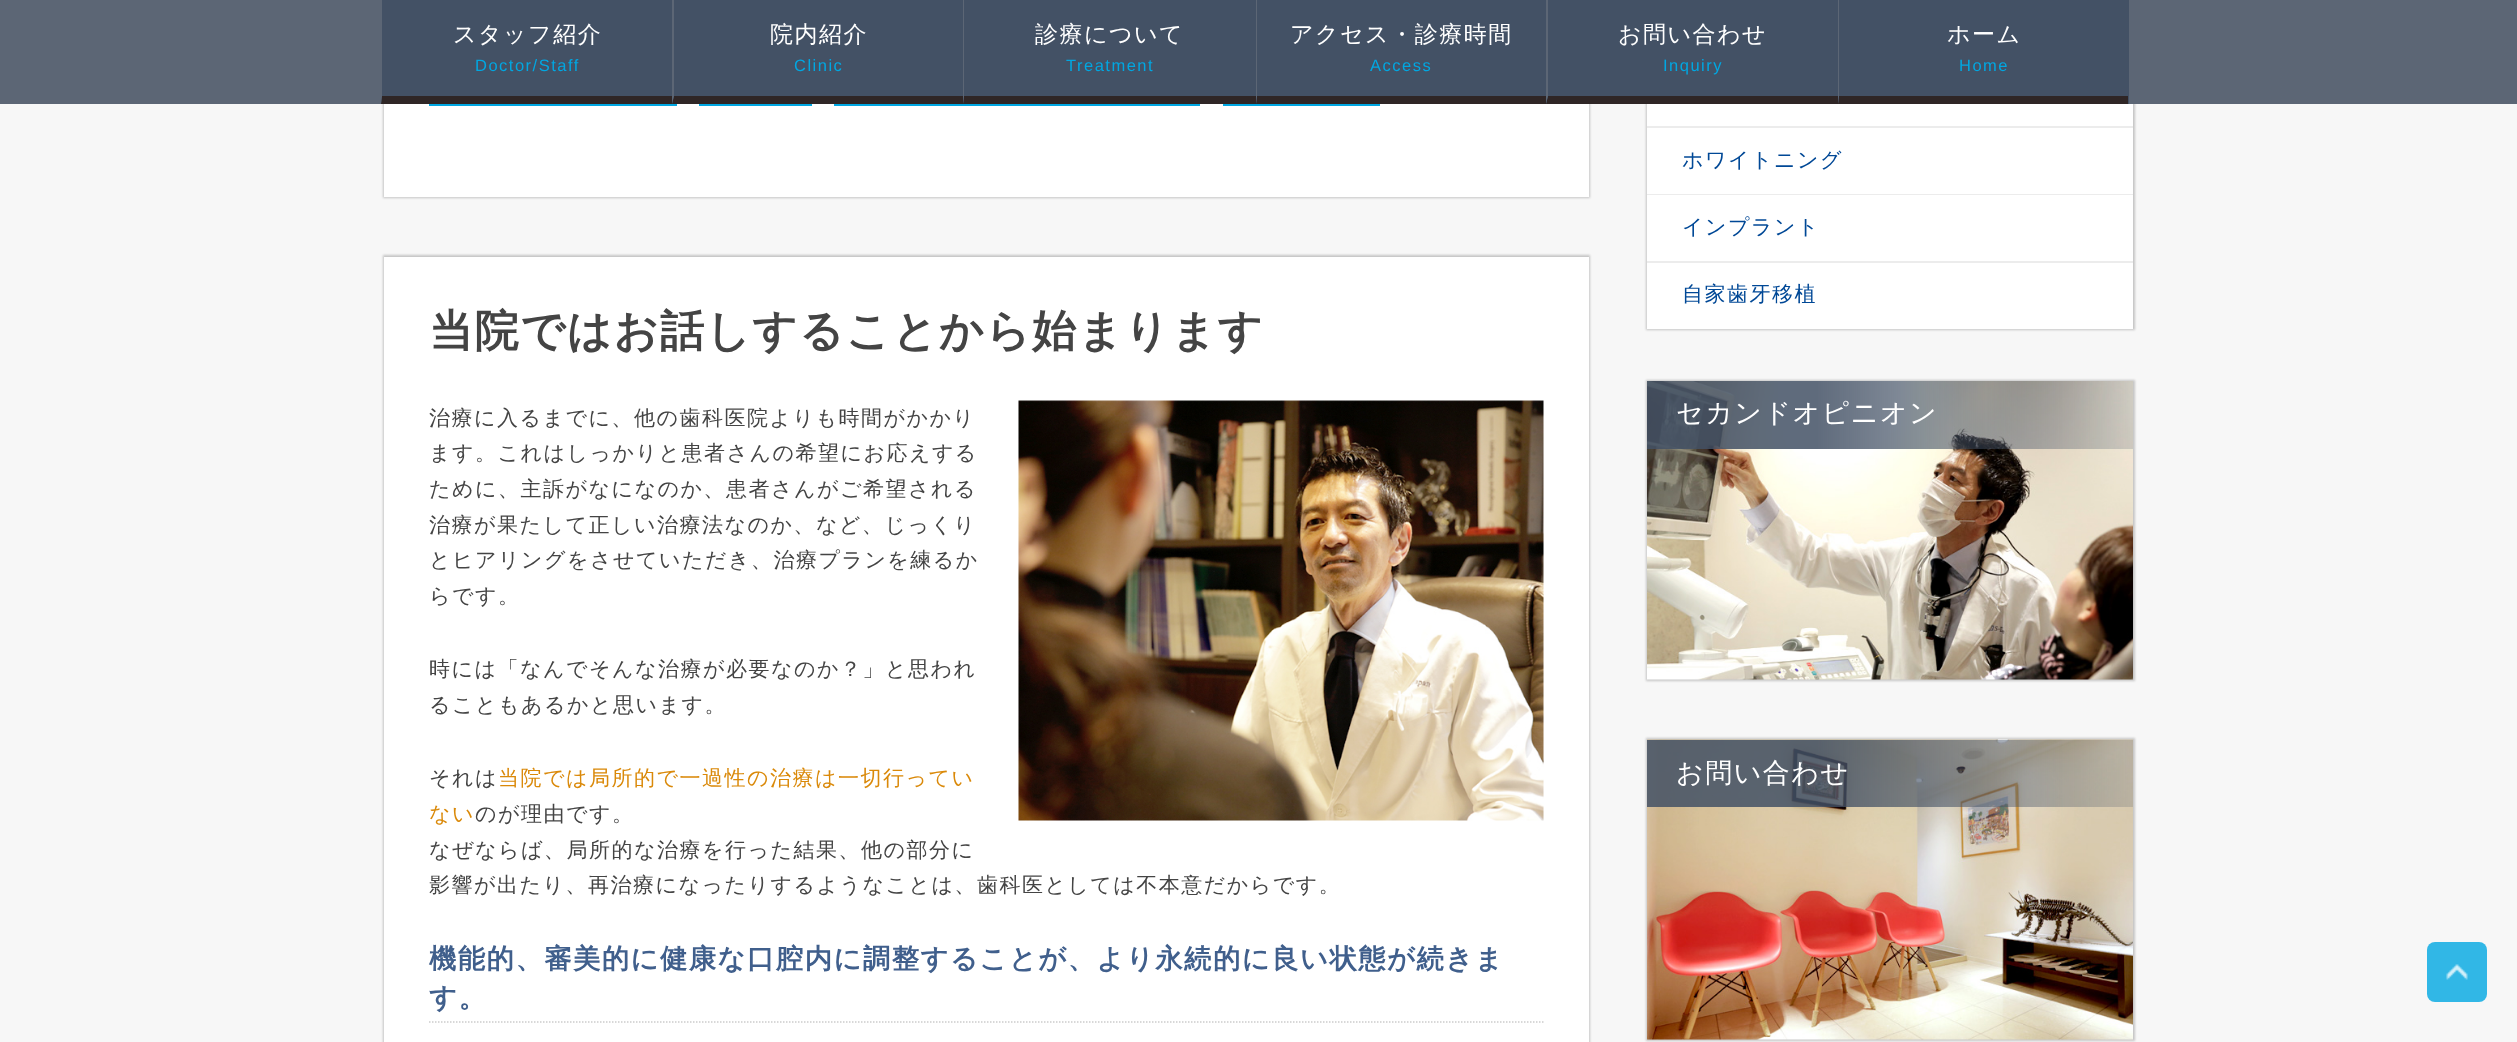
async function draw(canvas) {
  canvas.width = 2517;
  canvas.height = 1042;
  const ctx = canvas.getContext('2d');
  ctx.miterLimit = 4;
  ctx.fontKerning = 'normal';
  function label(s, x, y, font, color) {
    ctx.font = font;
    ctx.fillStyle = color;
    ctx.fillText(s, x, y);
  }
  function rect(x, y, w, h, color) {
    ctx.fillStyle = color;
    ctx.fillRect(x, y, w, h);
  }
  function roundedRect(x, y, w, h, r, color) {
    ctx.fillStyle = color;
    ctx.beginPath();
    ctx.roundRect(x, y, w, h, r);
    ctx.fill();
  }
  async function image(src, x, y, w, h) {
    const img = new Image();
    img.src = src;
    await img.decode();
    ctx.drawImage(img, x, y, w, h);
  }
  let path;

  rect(0, 0, 2517, 1042, '#f7f7f7');
  ctx.fillStyle = '#00000033';
  ctx.filter = 'blur(1px)';
  ctx.beginPath();
  ctx.rect(383, -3, 1207, 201);
  ctx.fill();
  ctx.filter = 'none';
  ctx.filter = 'blur(1px)';
  ctx.beginPath();
  ctx.rect(1646, -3, 489, 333);
  ctx.fill();
  ctx.filter = 'none';
  rect(0, 0, 2517, 104, '#5c6675');
  rect(381, 0, 1166, 104, '#435165');
  ctx.fillStyle = '#2f2626';
  path = new Path2D('M672 104H381L382 96H672Z');
  ctx.fill(path);
  ctx.fillStyle = '#5c6675';
  path = new Path2D('M381 104V0H382V96Z');
  ctx.fill(path);
  ctx.letterSpacing = '1.5px';
  label('スタッフ紹介', 453, 42, '500 23px WenQuanYi Zen Hei', '#fff');
  label('Doctor/Staff', 475, 71, '16.5px Liberation Sans', '#00a7e2');
  ctx.fillStyle = '#2f2626';
  path = new Path2D('M963 104H672L674 96H963Z');
  ctx.fill(path);
  ctx.fillStyle = '#5c6675';
  path = new Path2D('M672 104V0H674V96Z');
  ctx.fill(path);
  label('院内紹介', 770, 42, '500 23px WenQuanYi Zen Hei', '#fff');
  label('Clinic', 794, 71, '16.5px Liberation Sans', '#00a7e2');
  ctx.fillStyle = '#2f2626';
  path = new Path2D('M1256 104H963L964 96H1256Z');
  ctx.fill(path);
  ctx.fillStyle = '#5c6675';
  path = new Path2D('M963 104V0H964V96Z');
  ctx.fill(path);
  label('診療について', 1035, 42, '500 23px WenQuanYi Zen Hei', '#fff');
  label('Treatment', 1066, 71, '16.5px Liberation Sans', '#00a7e2');
  ctx.fillStyle = '#2f2626';
  path = new Path2D('M1546 104H1256L1257 96H1546Z');
  ctx.fill(path);
  ctx.fillStyle = '#5c6675';
  path = new Path2D('M1256 104V0H1257V96Z');
  ctx.fill(path);
  label('アクセス・診療時間', 1290, 42, '500 23px WenQuanYi Zen Hei', '#fff');
  label('Access', 1370, 71, '16.5px Liberation Sans', '#00a7e2');
  rect(1547, 0, 291, 100, '#435165');
  ctx.fillStyle = '#2f2626';
  path = new Path2D('M1838 104H1546L1548 96H1838Z');
  ctx.fill(path);
  ctx.fillStyle = '#5c6675';
  path = new Path2D('M1546 104V0H1548V96Z');
  ctx.fill(path);
  label('お問い合わせ', 1618, 42, '500 23px WenQuanYi Zen Hei', '#fff');
  label('Inquiry', 1663, 71, '16.5px Liberation Sans', '#00a7e2');
  rect(1838, 0, 291, 104, '#435165');
  ctx.fillStyle = '#2f2626';
  path = new Path2D('M2128 104H1838L1839 96H2128Z');
  ctx.fill(path);
  ctx.fillStyle = '#5c6675';
  path = new Path2D('M1838 104V0H1839V96Z');
  ctx.fill(path);
  label('ホーム', 1947, 42, '500 23px WenQuanYi Zen Hei', '#fff');
  label('Home', 1959, 71, '16.5px Liberation Sans', '#00a7e2');
  rect(384, 104, 1205, 93, '#fff');
  rect(429, 104, 248, 2, '#00a7e2');
  rect(699, 104, 113, 2, '#00a7e2');
  rect(834, 104, 366, 2, '#00a7e2');
  rect(1223, 104, 157, 2, '#00a7e2');
  ctx.fillStyle = '#00000033';
  ctx.filter = 'blur(1px)';
  ctx.beginPath();
  ctx.rect(383, 255, 1207, 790);
  ctx.fill();
  ctx.filter = 'none';
  rect(384, 257, 1205, 785, '#fff');
  label('当院ではお話しすることから始まります', 429, 346, 'bold 44.1px WenQuanYi Zen Hei', '#444');
  label('治療に入るまでに、他の歯科医院よりも時間がかかり', 429, 425, '500 21px WenQuanYi Zen Hei', '#444');
  await image('assets/img1.png', 1018, 400, 526, 421);
  label('ます。これはしっかりと患者さんの希望にお応えする', 429, 460, '500 21px WenQuanYi Zen Hei', '#444');
  label('ために、主訴がなになのか、患者さんがご希望される', 429, 496, '500 21px WenQuanYi Zen Hei', '#444');
  label('治療が果たして正しい治療法なのか、など、じっくり', 429, 532, '500 21px WenQuanYi Zen Hei', '#444');
  label('とヒアリングをさせていただき、治療プランを練るか', 429, 567, '500 21px WenQuanYi Zen Hei', '#444');
  label('らです。', 429, 603, '500 21px WenQuanYi Zen Hei', '#444');
  label('時には「なんでそんな治療が必要なのか？」と思われ', 429, 676, '500 21px WenQuanYi Zen Hei', '#444');
  label('ることもあるかと思います。', 429, 712, '500 21px WenQuanYi Zen Hei', '#444');
  label('それは', 429, 785, '500 21px WenQuanYi Zen Hei', '#444');
  label('当院では局所的で一過性の治療は一切行ってい', 498, 785, '500 21px WenQuanYi Zen Hei', '#da8909');
  label('ない', 429, 821, '500 21px WenQuanYi Zen Hei', '#da8909');
  label('のが理由です。', 475, 821, '500 21px WenQuanYi Zen Hei', '#444');
  label('なぜならば、局所的な治療を行った結果、他の部分に', 429, 857, '500 21px WenQuanYi Zen Hei', '#444');
  label('影響が出たり、再治療になったりするようなことは、歯科医としては不本意だからです。', 429, 892, '500 21px WenQuanYi Zen Hei', '#444');
  path = new Path2D('M429 1022H1543.5');
  ctx.strokeStyle = '#ccc';
  ctx.lineWidth = 1.5;
  ctx.setLineDash([1.5, 1.5]);
  ctx.stroke(path);
  label('機能的、審美的に健康な口腔内に調整することが、より永続的に良い状態が続きま', 429, 968, 'bold 27.3px WenQuanYi Zen Hei', '#405f8c');
  label('す。', 429, 1007, 'bold 27.3px WenQuanYi Zen Hei', '#405f8c');
  rect(1647, 104, 486, 22, '#fff');
  rect(1647, 126, 486, 2, '#ececec');
  rect(1647, 128, 486, 66, '#fff');
  rect(1647, 194, 486, 1, '#ececec');
  label('ホワイトニング', 1682, 167, '500 21px WenQuanYi Zen Hei', '#004896');
  rect(1647, 195, 486, 66, '#fff');
  rect(1647, 261, 486, 2, '#ececec');
  label('インプラント', 1682, 234, '500 21px WenQuanYi Zen Hei', '#004896');
  rect(1647, 263, 486, 66, '#fff');
  label('自家歯牙移植', 1682, 301, '500 21px WenQuanYi Zen Hei', '#004896');
  ctx.fillStyle = '#00000033';
  ctx.filter = 'blur(1px)';
  ctx.beginPath();
  ctx.rect(1646, 380, 489, 301);
  ctx.fill();
  ctx.filter = 'none';
  await image('assets/img2.png', 1647, 381, 486, 299);
  label('セカンドオピニオン', 1676, 422, '500 27px WenQuanYi Zen Hei', '#fff');
  ctx.fillStyle = '#00000033';
  ctx.filter = 'blur(1px)';
  ctx.beginPath();
  ctx.rect(1646, 738, 489, 303);
  ctx.fill();
  ctx.filter = 'none';
  await image('assets/img3.png', 1647, 739, 486, 301);
  label('お問い合わせ', 1676, 782, '500 27px WenQuanYi Zen Hei', '#fff');
  roundedRect(2427, 942, 60, 60, 8, '#31b7e6');
  await image('assets/img4.png', 2446, 964, 22, 16);
}

draw(document.querySelector('canvas'));
